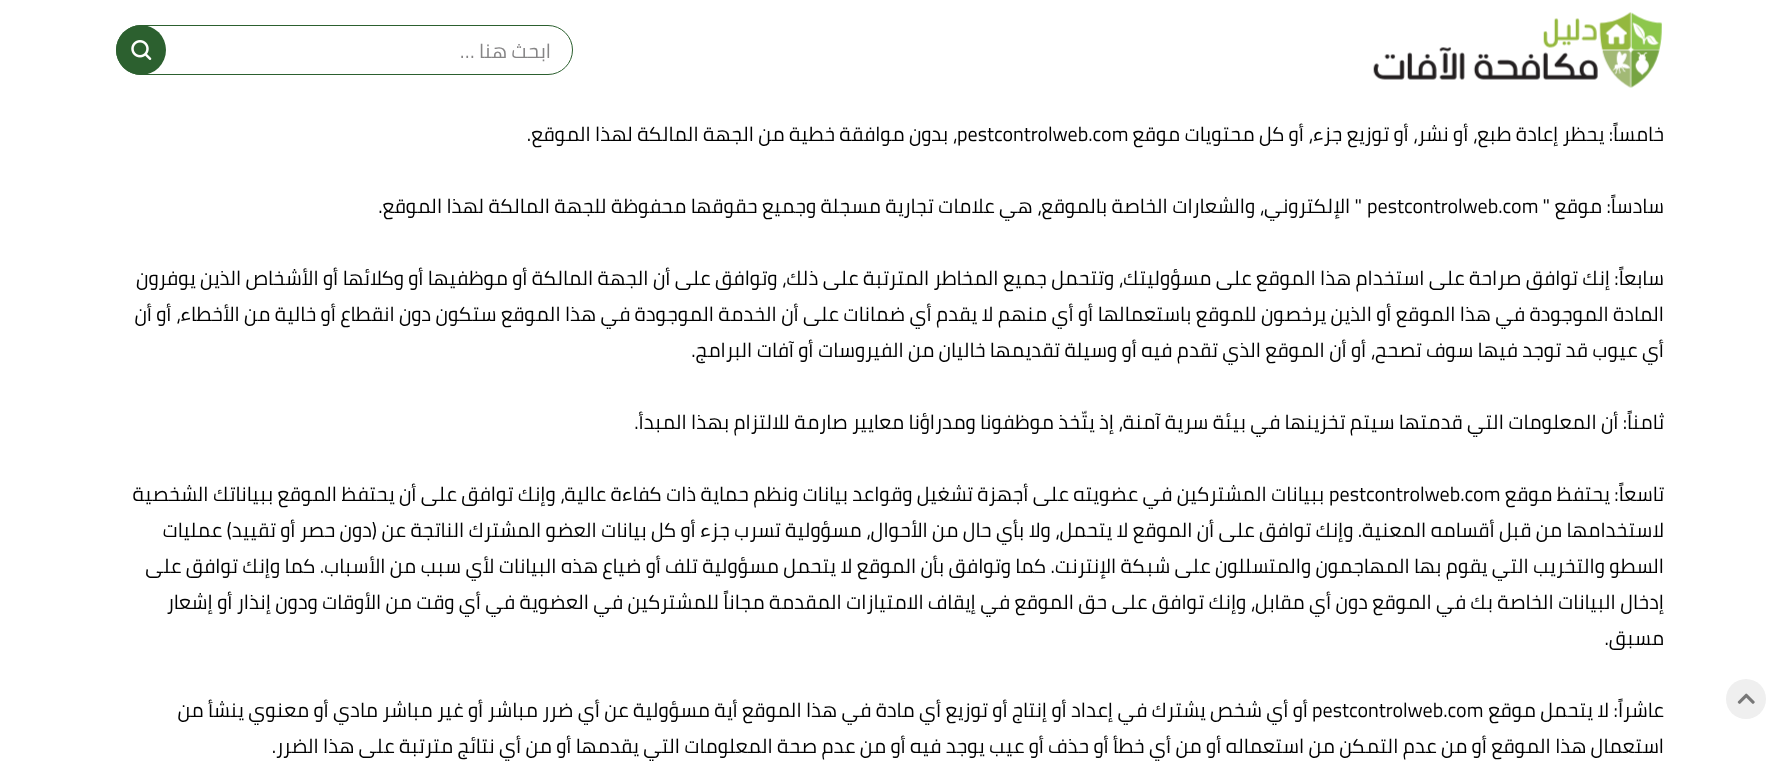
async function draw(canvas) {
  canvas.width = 1778;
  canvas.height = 768;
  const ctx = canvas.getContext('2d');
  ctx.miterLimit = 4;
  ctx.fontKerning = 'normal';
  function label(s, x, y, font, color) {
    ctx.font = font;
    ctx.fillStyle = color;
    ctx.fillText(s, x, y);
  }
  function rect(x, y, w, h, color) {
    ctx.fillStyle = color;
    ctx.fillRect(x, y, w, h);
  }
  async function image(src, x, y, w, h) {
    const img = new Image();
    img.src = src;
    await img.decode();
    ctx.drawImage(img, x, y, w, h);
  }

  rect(0, 0, 1778, 768, '#fff');
  await image('assets/img1.png', 1373, 12, 289, 76);
  ctx.beginPath();
  ctx.roundRect(116.5, 25.5, 456, 49, 24.5);
  ctx.strokeStyle = '#2c602f';
  ctx.stroke();
  ctx.direction = 'rtl';
  label('ابحث هنا …', 551, 58, '20px Cairo', '#868586');
  ctx.fillStyle = '#2c602f';
  ctx.beginPath();
  ctx.arc(141, 50, 25, 0, 2 * Math.PI);
  ctx.fill();
  await image('assets/img2.png', 131, 40, 21, 20);
  ctx.fillStyle = '#efefef';
  ctx.beginPath();
  ctx.arc(1746, 699, 20, 0, 2 * Math.PI);
  ctx.fill();
  await image('assets/img3.png', 1737, 693, 18, 11);
  label('خامساً: يحظر إعادة طبع، أو نشر، أو توزيع جزء، أو كل محتويات موقع', 1664, 141, '20px Cairo', '#000');
  ctx.direction = 'ltr';
  label('pestcontrolweb.com', 957, 141, '20px Cairo', '#000');
  ctx.direction = 'rtl';
  label('، بدون موافقة خطية من الجهة المالكة لهذا الموقع.', 957, 141, '20px Cairo', '#000');
  label('سادساً: موقع "', 1664, 213, '20px Cairo', '#000');
  ctx.direction = 'ltr';
  label('pestcontrolweb.com', 1367, 213, '20px Cairo', '#000');
  ctx.direction = 'rtl';
  label('" الإلكتروني، والشعارات الخاصة بالموقع، هي علامات تجارية مسجلة وجميع حقوقها محفوظة للجهة المالكة لهذا الموقع.', 1362, 213, '20px Cairo', '#000');
  label('سابعاً: إنك توافق صراحة على استخدام هذا الموقع على مسؤوليتك، وتتحمل جميع المخاطر المترتبة على ذلك، وتوافق على أن الجهة المالكة أو موظفيها أو وكلائها أو الأشخاص الذين يوفرون', 1664, 285, '20px Cairo', '#000');
  label('المادة الموجودة في هذا الموقع أو الذين يرخصون للموقع باستعمالها أو أي منهم لا يقدم أي ضمانات على أن الخدمة الموجودة في هذا الموقع ستكون دون انقطاع أو خالية من الأخطاء، أو أن', 1664, 321, '20px Cairo', '#000');
  label('أي عيوب قد توجد فيها سوف تصحح، أو أن الموقع الذي تقدم فيه أو وسيلة تقديمها خاليان من الفيروسات أو آفات البرامج.', 1664, 357, '20px Cairo', '#000');
  label('ثامناً: أن المعلومات التي قدمتها سيتم تخزينها في بيئة سرية آمنة، إذ يتّخذ موظفونا ومدراؤنا معايير صارمة للالتزام بهذا المبدأ.', 1664, 429, '20px Cairo', '#000');
  label('تاسعاً: يحتفظ موقع', 1664, 501, '20px Cairo', '#000');
  ctx.direction = 'ltr';
  label('pestcontrolweb.com', 1329, 501, '20px Cairo', '#000');
  ctx.direction = 'rtl';
  label('ببيانات المشتركين في عضويته على أجهزة تشغيل وقواعد بيانات ونظم حماية ذات كفاءة عالية، وإنك توافق على أن يحتفظ الموقع ببياناتك الشخصية', 1324, 501, '20px Cairo', '#000');
  label('لاستخدامها من قبل أقسامه المعنية. وإنك توافق على أن الموقع لا يتحمل، ولا بأي حال من الأحوال، مسؤولية تسرب جزء أو كل بيانات العضو المشترك الناتجة عن (دون حصر أو تقييد) عمليات', 1664, 537, '20px Cairo', '#000');
  label('السطو والتخريب التي يقوم بها المهاجمون والمتسللون على شبكة الإنترنت. كما وتوافق بأن الموقع لا يتحمل مسؤولية تلف أو ضياع هذه البيانات لأي سبب من الأسباب. كما وإنك توافق على', 1664, 573, '20px Cairo', '#000');
  label('إدخال البيانات الخاصة بك في الموقع دون أي مقابل، وإنك توافق على حق الموقع في إيقاف الامتيازات المقدمة مجاناً للمشتركين في العضوية في أي وقت من الأوقات ودون إنذار أو إشعار', 1664, 609, '20px Cairo', '#000');
  label('مسبق.', 1664, 645, '20px Cairo', '#000');
  label('عاشراً: لا يتحمل موقع', 1664, 717, '20px Cairo', '#000');
  ctx.direction = 'ltr';
  label('pestcontrolweb.com', 1312, 717, '20px Cairo', '#000');
  ctx.direction = 'rtl';
  label('أو أي شخص يشترك في إعداد أو إنتاج أو توزيع أي مادة في هذا الموقع أية مسؤولية عن أي ضرر مباشر أو غير مباشر مادي أو معنوي ينشأ من', 1308, 717, '20px Cairo', '#000');
  label('استعمال هذا الموقع أو من عدم التمكن من استعماله أو من أي خطأ أو حذف أو عيب يوجد فيه أو من عدم صحة المعلومات التي يقدمها أو من أي نتائج مترتبة على هذا الضرر.', 1664, 753, '20px Cairo', '#000');
}

draw(document.querySelector('canvas'));
